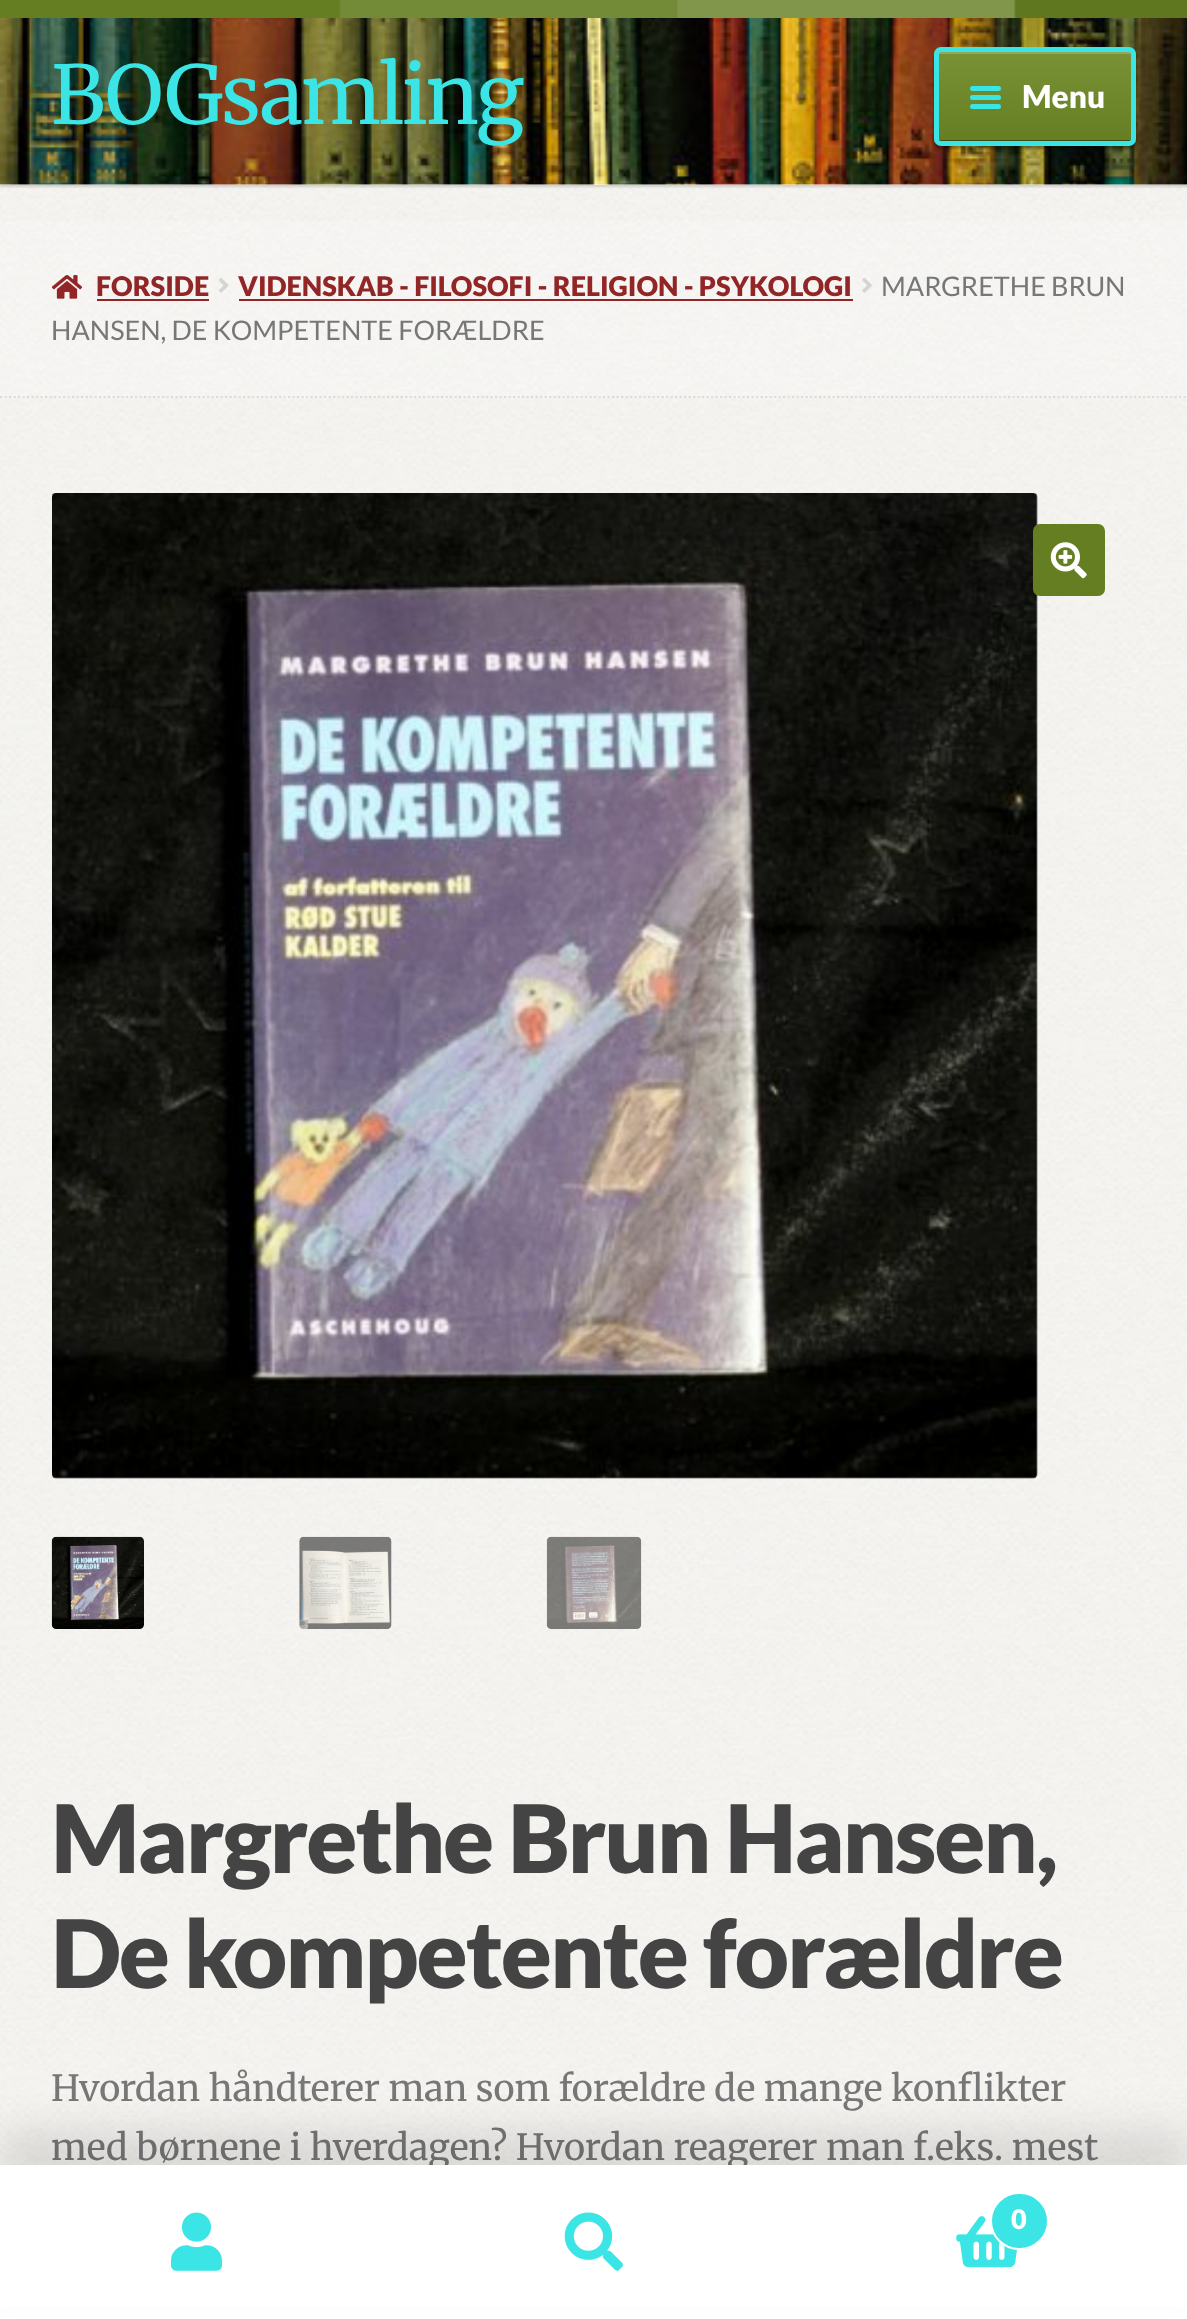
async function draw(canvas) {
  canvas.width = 1187;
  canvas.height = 2319;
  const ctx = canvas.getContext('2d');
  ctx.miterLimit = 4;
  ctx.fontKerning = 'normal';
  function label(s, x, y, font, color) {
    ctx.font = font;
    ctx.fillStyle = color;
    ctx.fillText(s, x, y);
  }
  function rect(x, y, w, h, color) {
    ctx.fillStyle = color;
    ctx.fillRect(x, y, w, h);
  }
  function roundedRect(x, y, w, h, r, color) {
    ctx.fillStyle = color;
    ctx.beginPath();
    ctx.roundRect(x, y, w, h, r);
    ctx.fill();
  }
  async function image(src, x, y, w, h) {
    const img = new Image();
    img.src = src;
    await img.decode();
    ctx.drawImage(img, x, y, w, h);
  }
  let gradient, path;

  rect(0, 0, 1187, 2319, '#fff');
  await image('assets/img1.png', 0, 185, 1187, 1980);
  ctx.fillStyle = '#00000026';
  ctx.filter = 'blur(1px)';
  ctx.beginPath();
  ctx.rect(0, 2, 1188, 185);
  ctx.fill();
  ctx.filter = 'none';
  rect(0, 184, 1187, 1, '#fff');
  await image('assets/img2.png', 0, 18, 1187, 167);
  rect(0, 0, 1187, 18, '#657e21');
  await image('assets/img3.png', 339, 0, 848, 18);
  ctx.letterSpacing = '-2.25px';
  label('BOGsamling', 51, 124, '80.75px Merriweather', '#3be5e5');
  ctx.fillStyle = '#0000004d';
  ctx.filter = 'blur(1px)';
  ctx.beginPath();
  ctx.roundRect(934, 50, 202, 99, 7);
  ctx.fill();
  ctx.filter = 'none';
  ctx.save();
  ctx.beginPath();
  ctx.roundRect(934, 47, 202, 99, 7);
  ctx.clip();
  gradient = ctx.createLinearGradient(1035, 52, 1035, 142);
  gradient.addColorStop(0, '#799235');
  gradient.addColorStop(1, '#657e21');
  ctx.fillStyle = gradient;
  ctx.fillRect(934, 52, 202, 90);
  ctx.restore();
  ctx.fillStyle = '#94a85d';
  path = new Path2D('M940 54H1130L1132 55V56C1132 54 1132 52 1130 52H940C938 52 938 54 938 56C938 55 939 54 940 54Z');
  ctx.fill(path);
  ctx.fillStyle = '#3d4c14';
  path = new Path2D('M938 137C938 139 937 142 940 142H1131C1133 141 1132 138 1132 137C1132 138 1131 140 1130 140H940C939 140 938 138 938 137Z');
  ctx.fill(path);
  ctx.beginPath();
  ctx.roundRect(936.5, 49.5, 197, 94, 4.5);
  ctx.strokeStyle = '#3be5e5';
  ctx.lineWidth = 5;
  ctx.stroke();
  roundedRect(970, 86, 31, 5, 2.5, '#3be5e5');
  roundedRect(970, 95, 31, 5, 2.5, '#3be5e5');
  ctx.letterSpacing = '0px';
  label('Menu', 1022, 108, '900 31.5px Lato', '#fff');
  roundedRect(970, 104, 31, 5, 2.5, '#3be5e5');
  rect(0, 221, 1187, 177, '#ffffff33');
  path = new Path2D('M-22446 397H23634');
  ctx.strokeStyle = '#0000001a';
  ctx.lineWidth = 2.2;
  ctx.setLineDash([2.25, 2.25]);
  ctx.stroke(path);
  await image('assets/img4.png', 51, 275, 32, 24);
  label('FORSIDE', 96, 296, '900 27px Lato', '#922627');
  rect(97, 299, 112, 2, '#922627');
  await image('assets/img5.png', 219, 278, 10, 15);
  label('VIDENSKAB - FILOSOFI - RELIGION - PSYKOLOGI', 238, 296, '900 27px Lato', '#922627');
  rect(239, 299, 614, 2, '#922627');
  await image('assets/img6.png', 862, 278, 10, 15);
  label('MARGRETHE BRUN', 881, 296, '27px Lato', '#777');
  label('HANSEN, DE KOMPETENTE FORÆLDRE', 51, 340, '27px Lato', '#777');
  await image('assets/img7.png', 52, 493, 986, 986);
  roundedRect(1033, 524, 72, 72, 7, '#657e21');
  await image('assets/img8.png', 1050, 542, 37, 37);
  await image('assets/img9.png', 51, 1536, 93, 93);
  await image('assets/img10.png', 299, 1536, 93, 93);
  await image('assets/img11.png', 546, 1536, 96, 93);
  ctx.letterSpacing = '-2.25px';
  label('Margrethe Brun Hansen,', 51, 1873, '900 94.25px Lato', '#444');
  label('De kompetente forældre', 51, 1988, '900 94.25px Lato', '#444');
  ctx.letterSpacing = '0px';
  label('Hvordan håndterer man som forældre de mange konflikter', 51, 2101, '36px Merriweather', '#777');
  label('med børnene i hverdagen? Hvordan reagerer man f.eks. mest', 51, 2160, '36px Merriweather', '#777');
  ctx.fillStyle = '#0000001a';
  ctx.filter = 'blur(18px)';
  ctx.beginPath();
  ctx.rect(0, 2129, 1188, 155);
  ctx.fill();
  ctx.filter = 'none';
  rect(0, 2165, 1187, 2, '#fff');
  rect(0, 2167, 1187, 140, '#fff');
  await image('assets/img12.png', 171, 2212, 51, 59);
  await image('assets/img13.png', 564, 2212, 59, 59);
  await image('assets/img14.png', 956, 2216, 62, 52);
  ctx.fillStyle = '#3be5e5';
  ctx.beginPath();
  ctx.roundRect(991, 2193, 57, 56, 28);
  ctx.fill();
  ctx.strokeStyle = '#fff';
  ctx.lineWidth = 2;
  ctx.setLineDash([]);
  ctx.stroke();
  label('0', 1011, 2229, '900 27px Lato', '#fff');
}

draw(document.querySelector('canvas'));
